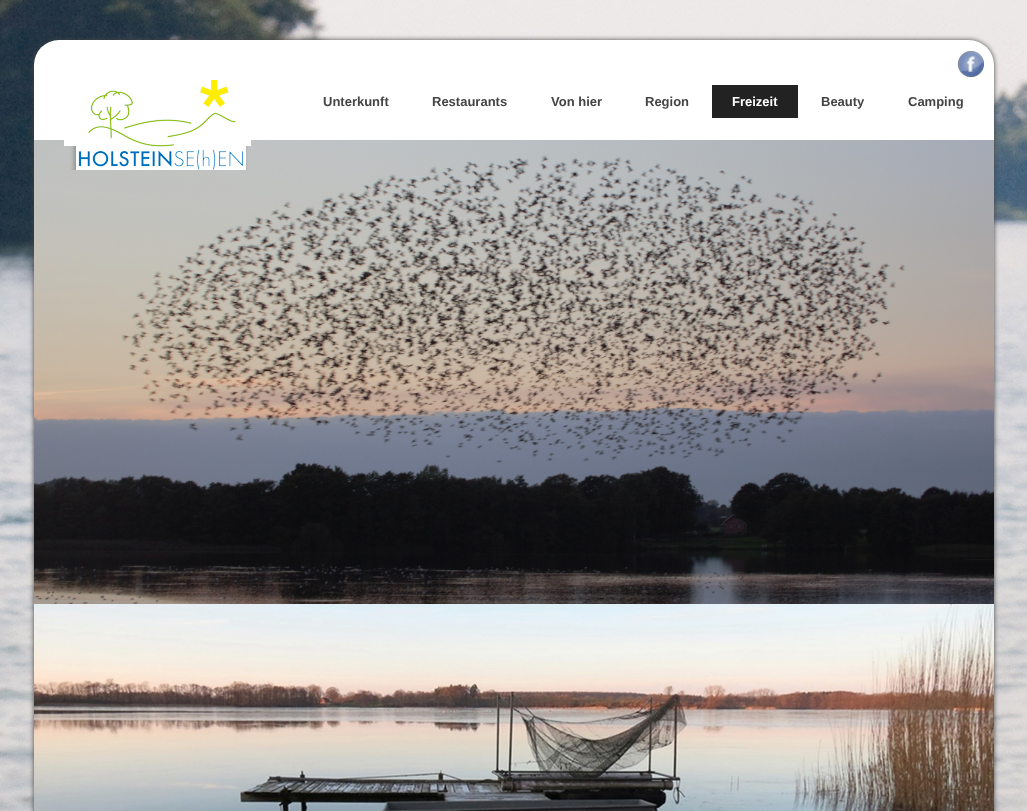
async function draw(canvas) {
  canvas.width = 1027;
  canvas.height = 811;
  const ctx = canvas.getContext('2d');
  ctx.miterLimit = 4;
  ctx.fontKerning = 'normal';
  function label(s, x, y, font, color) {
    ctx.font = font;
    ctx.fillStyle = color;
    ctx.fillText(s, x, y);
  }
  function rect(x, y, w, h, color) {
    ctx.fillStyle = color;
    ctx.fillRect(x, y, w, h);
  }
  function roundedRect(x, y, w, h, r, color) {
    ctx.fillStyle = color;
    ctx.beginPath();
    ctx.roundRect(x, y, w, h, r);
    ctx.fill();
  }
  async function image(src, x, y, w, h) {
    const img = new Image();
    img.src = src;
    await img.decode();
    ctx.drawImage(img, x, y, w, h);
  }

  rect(0, 0, 1027, 811, '#fff');
  await image('assets/img1.png', 0, 0, 1027, 811);
  ctx.fillStyle = '#444';
  ctx.filter = 'blur(2.5px)';
  ctx.beginPath();
  ctx.roundRect(34, 40, 960, 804, 25);
  ctx.fill();
  ctx.filter = 'none';
  roundedRect(34, 40, 960, 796, 25, '#fff');
  await image('assets/img2.png', 957, 51, 27, 27);
  await image('assets/img4.png', 34, 140, 960, 464);
  await image('assets/img3.png', 64, 80, 187, 90);
  label('Unterkunft', 323, 106, 'bold 13px Liberation Sans', '#444');
  label('Restaurants', 432, 106, 'bold 13px Liberation Sans', '#444');
  label('Von hier', 551, 106, 'bold 13px Liberation Sans', '#444');
  label('Region', 645, 106, 'bold 13px Liberation Sans', '#444');
  rect(712, 85, 86, 33, '#222');
  label('Freizeit', 732, 106, 'bold 13px Liberation Sans', '#fff');
  label('Beauty', 821, 106, 'bold 13px Liberation Sans', '#444');
  label('Camping', 908, 106, 'bold 13px Liberation Sans', '#444');
  await image('assets/img5.png', 34, 604, 960, 207);
}

draw(document.querySelector('canvas'));
